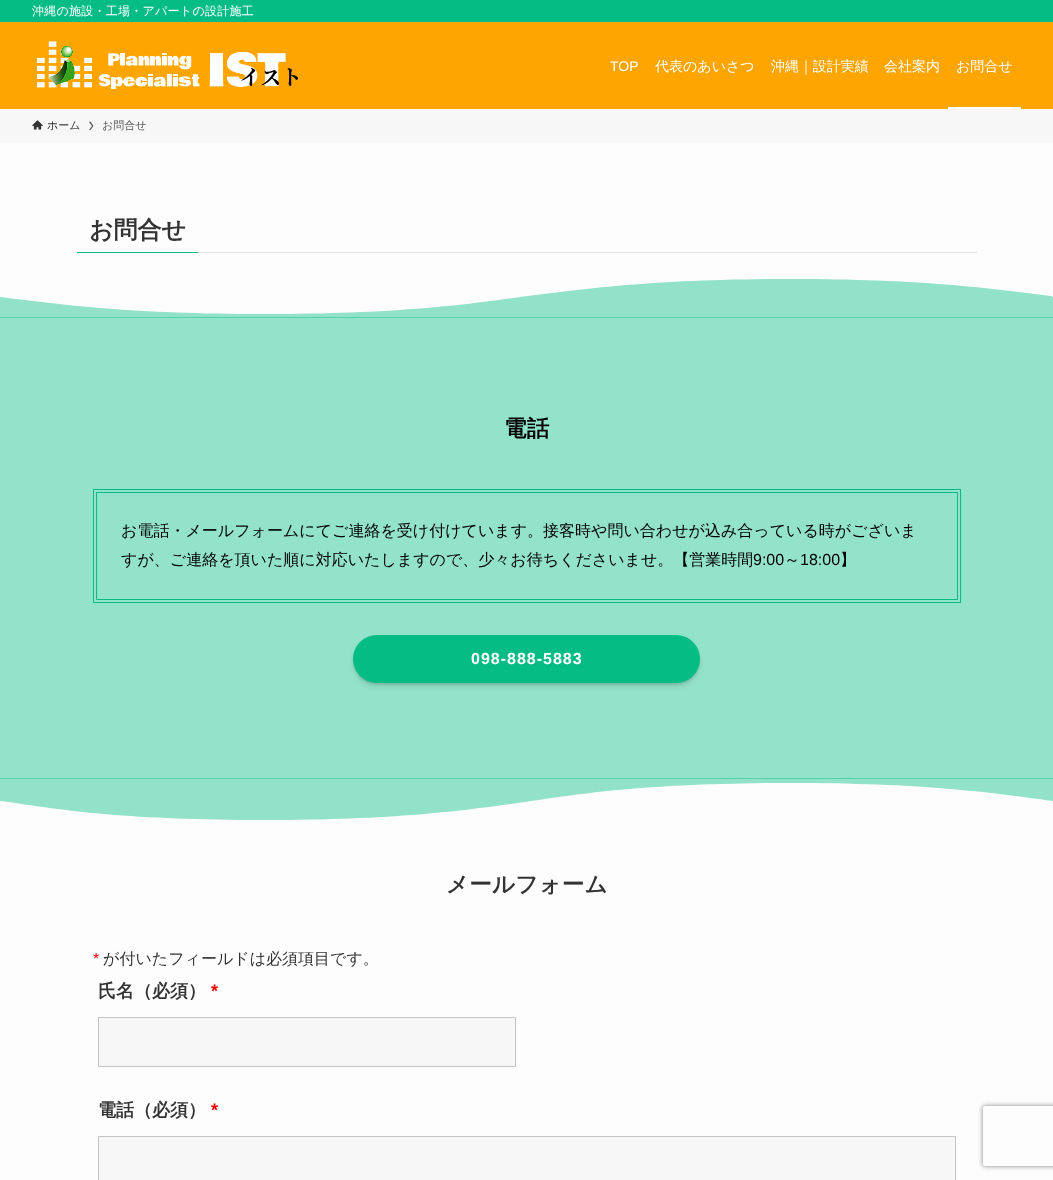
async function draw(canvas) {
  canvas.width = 1053;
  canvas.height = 1180;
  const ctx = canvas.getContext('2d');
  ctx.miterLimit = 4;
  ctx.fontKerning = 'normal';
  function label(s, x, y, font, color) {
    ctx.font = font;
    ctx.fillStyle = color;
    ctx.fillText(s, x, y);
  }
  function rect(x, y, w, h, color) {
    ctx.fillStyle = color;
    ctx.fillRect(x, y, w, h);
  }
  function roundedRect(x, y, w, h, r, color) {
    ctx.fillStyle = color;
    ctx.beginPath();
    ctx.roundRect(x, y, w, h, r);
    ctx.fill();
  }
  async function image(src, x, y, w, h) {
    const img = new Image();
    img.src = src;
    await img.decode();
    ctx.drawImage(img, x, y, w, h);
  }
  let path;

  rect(0, 0, 1053, 1180, '#fdfdfd');
  rect(0, 22, 1053, 87, '#ffa500');
  rect(0, 0, 1053, 22, '#05bc85');
  ctx.letterSpacing = '0.25px';
  label('沖縄の施設・工場・アパートの設計施工', 32, 15, '500 12px WenQuanYi Zen Hei', '#fff');
  await image('assets/img1.png', 37, 41, 261, 48);
  ctx.letterSpacing = '0px';
  label('TOP', 610, 71, '14px Liberation Sans', '#fff');
  label('代表のあいさつ', 655, 71, '500 14px WenQuanYi Zen Hei', '#fff');
  label('沖縄｜設計実績', 771, 71, '500 14px WenQuanYi Zen Hei', '#fff');
  label('会社案内', 884, 71, '500 14px WenQuanYi Zen Hei', '#fff');
  label('お問合せ', 956, 71, '500 14px WenQuanYi Zen Hei', '#fff');
  rect(948, 107, 73, 2, '#fff');
  rect(0, 109, 1053, 34, '#f7f7f7');
  await image('assets/img2.png', 32, 120, 11, 10);
  label('ホーム', 47, 129, '500 11px WenQuanYi Zen Hei', '#333');
  ctx.fillStyle = '#5a5a5a';
  path = new Path2D('M90.5 121.5L89 122L92 126L89 130H90.5L93.5 126Z');
  ctx.fill(path);
  label('お問合せ', 102, 129, '500 11px WenQuanYi Zen Hei', '#5a5a5a');
  rect(198, 252, 779, 1, '#e2e2e2');
  rect(77, 252, 121, 1, '#05bc85');
  label('お問合せ', 89, 238, 'bold 24px WenQuanYi Zen Hei', '#333');
  rect(0, 317, 1053, 462, '#93e2ca');
  ctx.fillStyle = '#05bc856e';
  path = new Path2D('M1053 297L1051 296C987 288 921 279 790 279C659 279 592 288 528 296C463 305 396 314 263 314C132 314 65 305 0 297V318H1053Z');
  ctx.fill(path);
  ctx.letterSpacing = '0.25px';
  label('電話', 504, 436, 'bold 22.5px WenQuanYi Zen Hei', '#000');
  ctx.strokeStyle = '#05bc85';
  ctx.strokeRect(93.5, 489.5, 867, 113);
  ctx.strokeRect(96.5, 492.5, 861, 107);
  ctx.letterSpacing = '0px';
  label('お電話・メールフォームにてご連絡を受け付けています。接客時や問い合わせが込み合っている時がございま', 121, 536, '500 16px WenQuanYi Zen Hei', '#000');
  label('すが、ご連絡を頂いた順に対応いたしますので、少々お待ちくださいませ。【営業時間', 121, 565, '500 16px WenQuanYi Zen Hei', '#000');
  label('9:00', 753, 565, '16px Liberation Sans', '#000');
  label('～', 784, 565, '500 16px WenQuanYi Zen Hei', '#000');
  label('18:00', 800, 565, '16px Liberation Sans', '#000');
  label('】', 840, 565, '500 16px WenQuanYi Zen Hei', '#000');
  ctx.fillStyle = '#00000033';
  ctx.filter = 'blur(4px)';
  ctx.beginPath();
  ctx.roundRect(357, 643, 339, 40, 20);
  ctx.fill();
  ctx.filter = 'none';
  ctx.fillStyle = '#0000001a';
  ctx.filter = 'blur(1px)';
  ctx.beginPath();
  ctx.roundRect(353, 637, 347, 48, 24);
  ctx.fill();
  ctx.filter = 'none';
  roundedRect(353, 635, 347, 48, 24, '#05bc85');
  ctx.letterSpacing = '1px';
  label('098-888-5883', 471, 664, 'bold 16px Liberation Sans', '#fff');
  ctx.fillStyle = '#05bc856e';
  path = new Path2D('M0 801H2C66 811 132 820 263 820C394 820 461 811 525 802C590 792 657 783 790 783C921 783 988 792 1053 801V778H0Z');
  ctx.fill(path);
  ctx.letterSpacing = '0.25px';
  label('メールフォーム', 446, 892, 'bold 22.5px WenQuanYi Zen Hei', '#333');
  ctx.letterSpacing = '0px';
  label('*', 93, 964, '16px Liberation Sans', '#e80000');
  label('が付いたフィールドは必須項目です。', 103, 964, '500 16px WenQuanYi Zen Hei', '#333');
  label('氏名（必須）', 98, 997, 'bold 18px WenQuanYi Zen Hei', '#333');
  label('*', 211, 997, 'bold 18px Liberation Sans', '#e80000');
  ctx.fillStyle = '#f7f7f7';
  ctx.beginPath();
  ctx.rect(98.5, 1017.5, 417, 49);
  ctx.fill();
  ctx.strokeStyle = '#c4c4c4';
  ctx.stroke();
  label('電話（必須）', 98, 1116, 'bold 18px WenQuanYi Zen Hei', '#333');
  label('*', 211, 1116, 'bold 18px Liberation Sans', '#e80000');
  ctx.fillStyle = '#f7f7f7';
  ctx.beginPath();
  ctx.rect(98.5, 1136.5, 857, 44);
  ctx.fill();
  ctx.stroke();
  ctx.save();
  path = new Path2D('M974 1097H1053V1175H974ZM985 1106H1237C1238 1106 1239 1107 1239 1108V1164C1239 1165 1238 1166 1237 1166H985C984 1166 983 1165 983 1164V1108C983 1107 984 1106 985 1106Z');
  ctx.clip(path, 'evenodd');
  ctx.fillStyle = '#808080';
  ctx.filter = 'blur(2.5px)';
  ctx.beginPath();
  ctx.roundRect(983, 1106, 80, 60, 2);
  ctx.fill();
  ctx.filter = 'none';
  ctx.restore();
}

draw(document.querySelector('canvas'));
